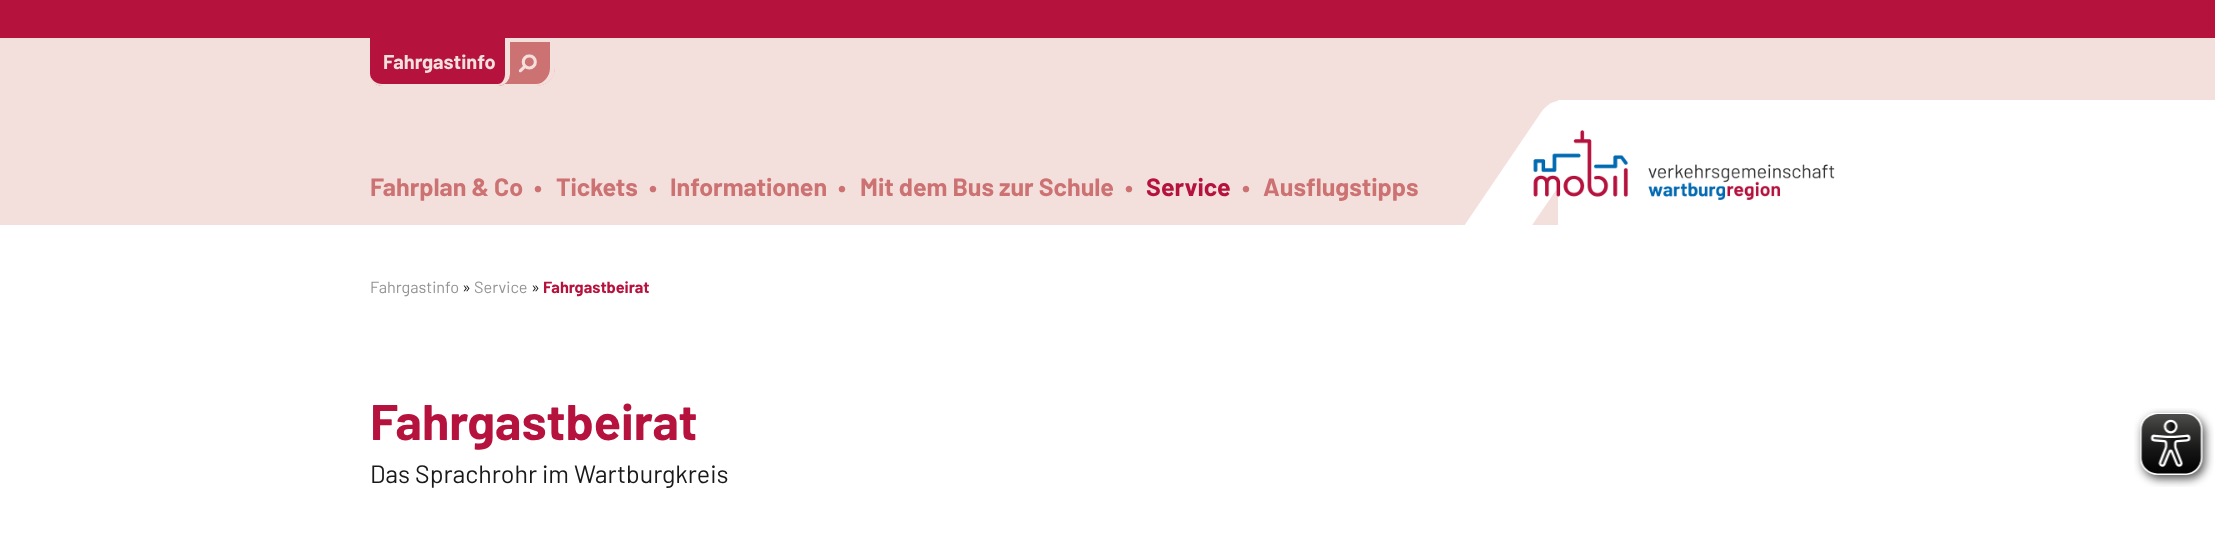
async function draw(canvas) {
  canvas.width = 2215;
  canvas.height = 558;
  const ctx = canvas.getContext('2d');
  ctx.miterLimit = 4;
  ctx.fontKerning = 'normal';
  function label(s, x, y, font, color) {
    ctx.font = font;
    ctx.fillStyle = color;
    ctx.fillText(s, x, y);
  }
  function rect(x, y, w, h, color) {
    ctx.fillStyle = color;
    ctx.fillRect(x, y, w, h);
  }
  async function image(src, x, y, w, h) {
    const img = new Image();
    img.src = src;
    await img.decode();
    ctx.drawImage(img, x, y, w, h);
  }
  let path;

  rect(0, 0, 2215, 558, '#fff');
  rect(0, 38, 2215, 187, '#f3e0dd');
  rect(0, 0, 2215, 38, '#b5123d');
  ctx.fillStyle = '#cd7272';
  ctx.beginPath();
  ctx.roundRect(491, 38, 64, 48, [0, 0, 19, 13]);
  ctx.fill();
  await image('assets/img1.png', 518, 54, 19, 19);
  ctx.fillStyle = '#f3e0dd';
  path = new Path2D('M491 38H555V68C555 78 547 86 536 86H504C497 86 491 81 491 74ZM491 42H550V68C550 76 544 84 536 84H504C497 84 491 79 491 74Z');
  ctx.fill(path, 'evenodd');
  ctx.fillStyle = '#b5123d';
  ctx.beginPath();
  ctx.roundRect(370, 38, 140, 48, [0, 0, 13, 13]);
  ctx.fill();
  ctx.fillStyle = '#f3e0dd';
  path = new Path2D('M370 38H510V74C510 81 504 86 498 86H382C376 86 370 81 370 74ZM370 38H505V74C505 79 502 84 498 84H382C376 84 370 79 370 74Z');
  ctx.fill(path, 'evenodd');
  label('Fahrgastinfo', 383, 69, 'bold 20px Barlow', '#f3e0dd');
  label('Fahrplan & Co', 370, 196, 'bold 25px Barlow', '#cd7272');
  label('•', 534, 196, 'bold 25px Barlow', '#cd7272');
  label('Tickets', 556, 196, 'bold 25px Barlow', '#cd7272');
  label('•', 649, 196, 'bold 25px Barlow', '#cd7272');
  label('Informationen', 670, 196, 'bold 25px Barlow', '#cd7272');
  label('•', 838, 196, 'bold 25px Barlow', '#cd7272');
  label('Mit dem Bus zur Schule', 860, 196, 'bold 25px Barlow', '#cd7272');
  label('•', 1125, 196, 'bold 25px Barlow', '#cd7272');
  label('Service', 1146, 196, 'bold 25px Barlow', '#b5123d');
  label('•', 1242, 196, 'bold 25px Barlow', '#cd7272');
  label('Ausflugstipps', 1263, 196, 'bold 25px Barlow', '#cd7272');
  rect(1558, 100, 657, 125, '#fff');
  path = new Path2D('M1464 226L1528 231L1574 164L1558 101C1551 102 1546 106 1542 111Z');
  ctx.fill(path);
  path = new Path2D('M1603 221L1556 190L1574 164L1558 101C1563 100 1568 101 1573 103L1648 154Z');
  ctx.fill(path);
  await image('assets/img2.png', 1533, 130, 302, 70);
  label('Fahrgastinfo', 370, 293, '16.25px Barlow', '#939393');
  label('»', 462, 293, '16.25px Barlow', '#191919');
  label('Service', 474, 293, '16.25px Barlow', '#939393');
  label('»', 531, 293, '16.25px Barlow', '#191919');
  label('Fahrgastbeirat', 543, 293, 'bold 16.25px Barlow', '#b5123d');
  label('Fahrgastbeirat', 370, 440, 'bold 50px Barlow', '#b5123d');
  label('Das Sprachrohr im Wartburgkreis', 370, 483, '25px Barlow', '#191919');
  await image('assets/img3.png', 2134, 408, 80, 79);
}

draw(document.querySelector('canvas'));
